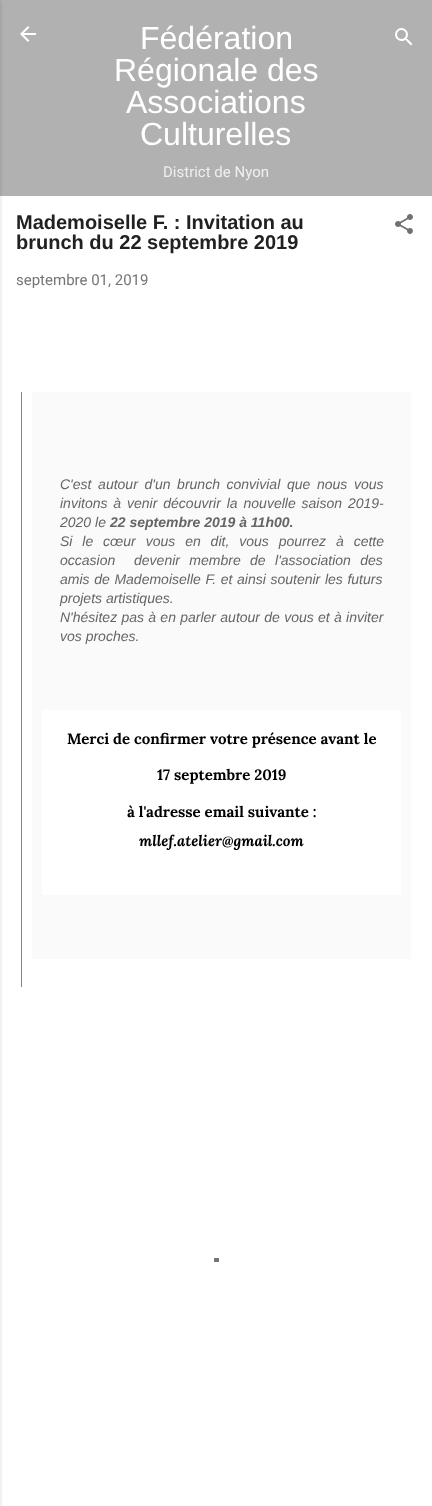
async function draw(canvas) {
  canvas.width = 432;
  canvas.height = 1506;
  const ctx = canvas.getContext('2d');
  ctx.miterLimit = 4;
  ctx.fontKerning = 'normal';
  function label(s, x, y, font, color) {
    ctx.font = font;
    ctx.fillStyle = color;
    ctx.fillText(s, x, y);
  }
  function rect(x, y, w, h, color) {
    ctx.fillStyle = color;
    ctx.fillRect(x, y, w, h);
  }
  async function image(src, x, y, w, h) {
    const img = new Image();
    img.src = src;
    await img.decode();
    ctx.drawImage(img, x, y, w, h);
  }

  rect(0, 0, 432, 1506, '#b1b1b1');
  rect(0, 196, 432, 1310, '#fff');
  ctx.fillStyle = '#0000001a';
  ctx.filter = 'blur(1.5px)';
  ctx.beginPath();
  ctx.rect(-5, 1, 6, 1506);
  ctx.fill();
  ctx.filter = 'none';
  await image('assets/img1.png', 20, 26, 16, 16);
  label('Fédération', 140, 49, '32px Liberation Sans', '#fff');
  label('Régionale des', 114, 81, '32px Liberation Sans', '#fff');
  label('Associations', 126, 113, '32px Liberation Sans', '#fff');
  label('Culturelles', 140, 145, '32px Liberation Sans', '#fff');
  label('District de Nyon', 163, 177, '15px Roboto', '#efefef');
  await image('assets/img2.png', 395, 28, 18, 18);
  label('Mademoiselle F. : Invitation au', 16, 229, 'bold 20px Liberation Sans', '#212121');
  label('brunch du 22 septembre 2019', 16, 249, 'bold 20px Liberation Sans', '#212121');
  await image('assets/img3.png', 395, 214, 18, 20);
  label('septembre 01, 2019', 16, 285, '15px Roboto', '#757575');
  rect(21, 392, 1, 595, '#1abc9c');
  rect(32, 392, 379, 567, '#fafafa');
  ctx.wordSpacing = '2.75px';
  label('C\'est autour d\'un brunch convivial que nous vous', 60, 489, 'italic 14px Liberation Sans', '#656565');
  ctx.wordSpacing = '2px';
  label('invitons à venir découvrir la nouvelle saison 2019-', 60, 508, 'italic 14px Liberation Sans', '#656565');
  ctx.wordSpacing = '0px';
  label('2020 le', 60, 527, 'italic 14px Liberation Sans', '#656565');
  label('22 septembre 2019 à 11h00.', 110, 527, 'italic bold 14px Liberation Sans', '#656565');
  ctx.wordSpacing = '6px';
  label('Si le cœur vous en dit, vous pourrez à cette', 60, 546, 'italic 14px Liberation Sans', '#656565');
  ctx.wordSpacing = '5.5px';
  label('occasion  devenir membre de l\'association des', 60, 565, 'italic 14px Liberation Sans', '#656565');
  ctx.wordSpacing = '0.75px';
  label('amis de Mademoiselle F. et ainsi soutenir les futurs', 60, 584, 'italic 14px Liberation Sans', '#656565');
  ctx.wordSpacing = '0px';
  label('projets artistiques.', 60, 603, 'italic 14px Liberation Sans', '#656565');
  ctx.wordSpacing = '0.4px';
  label('N\'hésitez pas à en parler autour de vous et à inviter', 60, 622, 'italic 14px Liberation Sans', '#656565');
  ctx.wordSpacing = '0px';
  label('vos proches.', 60, 641, 'italic 14px Liberation Sans', '#656565');
  rect(42, 710, 359, 185, '#fff');
  label('Merci de confirmer votre présence avant le', 67, 744, 'bold 15px Lora', '#000');
  label('17 septembre 2019', 157, 780, 'bold 15px Lora', '#000');
  label('à l\'adresse email suivante :', 127, 817, 'bold 15px Lora', '#000');
  label('mllef.atelier@gmail.com', 139, 846, 'italic bold 15px Lora', '#000');
  rect(214, 1258, 5, 4, '#757575');
}

draw(document.querySelector('canvas'));
